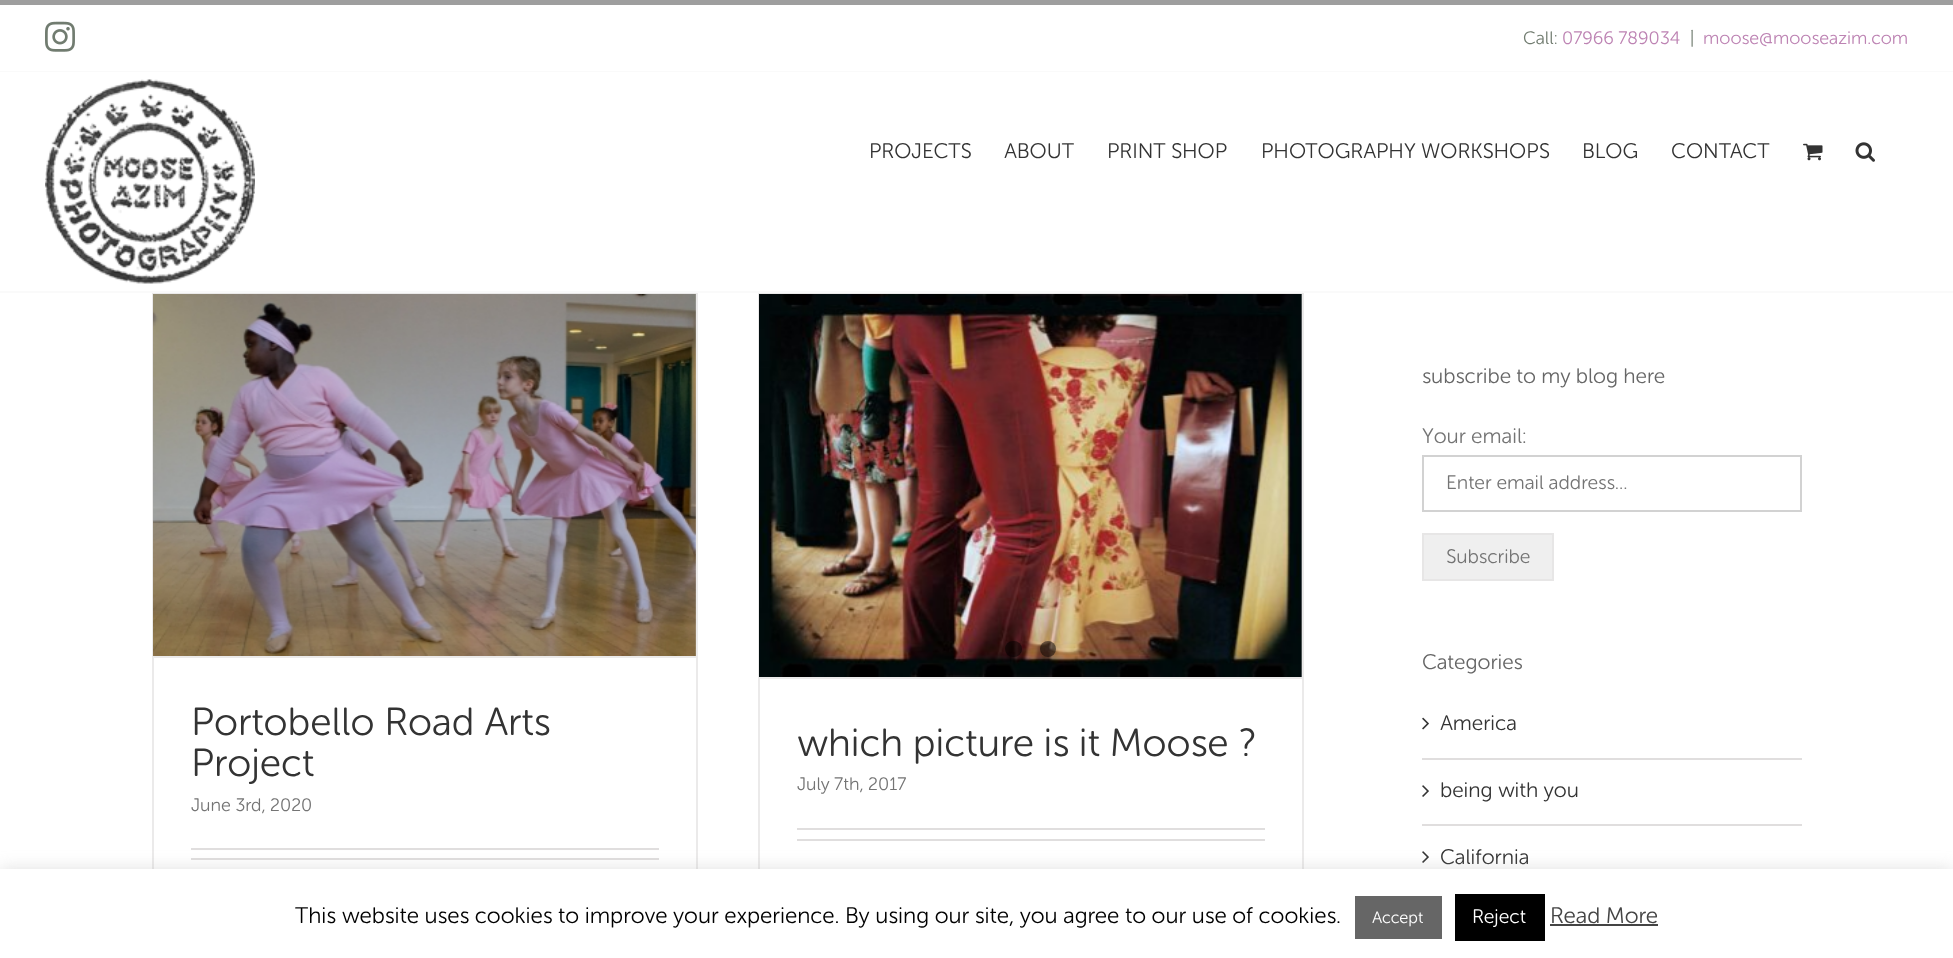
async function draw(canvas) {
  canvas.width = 1953;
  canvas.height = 958;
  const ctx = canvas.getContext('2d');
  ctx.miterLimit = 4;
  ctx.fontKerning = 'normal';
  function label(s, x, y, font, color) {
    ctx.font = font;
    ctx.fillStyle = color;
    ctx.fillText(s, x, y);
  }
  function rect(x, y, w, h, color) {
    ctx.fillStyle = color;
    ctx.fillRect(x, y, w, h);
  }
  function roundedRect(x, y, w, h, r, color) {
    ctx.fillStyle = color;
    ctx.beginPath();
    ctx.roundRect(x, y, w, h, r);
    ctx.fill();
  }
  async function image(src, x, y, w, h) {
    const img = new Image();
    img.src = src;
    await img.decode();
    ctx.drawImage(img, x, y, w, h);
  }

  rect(0, 0, 1953, 958, '#fff');
  rect(0, 0, 1953, 5, '#9e9e9e');
  rect(0, 71, 1953, 1, '#fafafa');
  await image('assets/img1.png', 45, 21, 30, 31);
  label('Call:', 1523, 44, '18px "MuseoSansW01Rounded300"', '#717c70');
  label('07966 789034', 1562, 44, '18px "MuseoSansW01Rounded300"', '#bd83b3');
  label('|', 1690, 44, '18px "MuseoSansW01Rounded300"', '#717c70');
  label('moose@mooseazim.com', 1703, 44, '18px "MuseoSansW01Rounded300"', '#bd83b3');
  rect(0, 291, 1953, 2, '#fafafa');
  await image('assets/img2.png', 45, 79, 210, 205);
  label('PROJECTS', 869, 158, '21px "MuseoSansW01Rounded300"', '#333');
  label('ABOUT', 1004, 158, '21px "MuseoSansW01Rounded300"', '#333');
  label('PRINT SHOP', 1107, 158, '21px "MuseoSansW01Rounded300"', '#333');
  label('PHOTOGRAPHY WORKSHOPS', 1261, 158, '21px "MuseoSansW01Rounded300"', '#333');
  label('BLOG', 1582, 158, '21px "MuseoSansW01Rounded300"', '#333');
  label('CONTACT', 1671, 158, '21px "MuseoSansW01Rounded300"', '#333');
  await image('assets/img3.png', 1803, 143, 20, 18);
  await image('assets/img4.png', 1855, 142, 20, 20);
  rect(152, 293, 546, 2, '#ebeaea');
  rect(696, 293, 2, 576, '#ebeaea');
  rect(152, 293, 2, 576, '#ebeaea');
  rect(153, 656, 543, 2, '#ebeaea');
  await image('assets/img5.png', 153, 294, 543, 362);
  label('Portobello Road Arts', 191, 735, '39px "MuseoSansW01Rounded300"', '#333');
  label('Project', 191, 776, '39px "MuseoSansW01Rounded300"', '#333');
  label('June 3rd, 2020', 191, 811, '18px "MuseoSansW01Rounded300"', '#747474');
  rect(191, 848, 468, 2, '#e0dede');
  rect(191, 858, 468, 2, '#e0dede');
  rect(758, 293, 546, 2, '#ebeaea');
  rect(1302, 293, 2, 576, '#ebeaea');
  rect(758, 293, 2, 576, '#ebeaea');
  rect(759, 677, 543, 2, '#ebeaea');
  await image('assets/img6.png', 759, 294, 543, 383);
  roundedRect(1005, 641, 17, 16, 8, '#00000080');
  ctx.beginPath();
  ctx.arc(1048, 649, 8, 0, 2 * Math.PI);
  ctx.fill();
  label('which picture is it Moose ?', 797, 756, '39px "MuseoSansW01Rounded300"', '#333');
  label('July 7th, 2017', 797, 790, '18px "MuseoSansW01Rounded300"', '#747474');
  rect(797, 828, 468, 2, '#e0dede');
  rect(797, 839, 468, 2, '#e0dede');
  label('subscribe to my blog here', 1422, 383, '21px "MuseoSansW01Rounded300"', '#666');
  label('Your email:', 1422, 443, '21px "MuseoSansW01Rounded300"', '#747474');
  ctx.strokeStyle = '#d2d2d2';
  ctx.lineWidth = 2;
  ctx.strokeRect(1423, 456, 378, 55);
  label('Enter email address...', 1446, 489, '19.5px "MuseoSansW01Rounded300"', '#747474');
  ctx.fillStyle = '#efefef';
  ctx.beginPath();
  ctx.rect(1423, 534, 130, 46);
  ctx.fill();
  ctx.strokeStyle = '#e7e6e6';
  ctx.stroke();
  label('Subscribe', 1446, 563, '19.5px "MuseoSansW01Rounded300"', '#747474');
  label('Categories', 1422, 669, '21px "MuseoSansW01Rounded300"', '#666');
  rect(1422, 758, 380, 2, '#e0dede');
  await image('assets/img7.png', 1422, 717, 7, 13);
  label('America', 1440, 730, '21px "MuseoSansW01Rounded300"', '#333');
  rect(1422, 824, 380, 2, '#e0dede');
  await image('assets/img8.png', 1422, 785, 7, 12);
  label('being with you', 1440, 797, '21px "MuseoSansW01Rounded300"', '#333');
  await image('assets/img8.png', 1422, 851, 7, 12);
  label('California', 1440, 864, '21px "MuseoSansW01Rounded300"', '#333');
  ctx.fillStyle = '#acabab4d';
  ctx.filter = 'blur(7.5px)';
  ctx.beginPath();
  ctx.rect(0, 867, 1953, 90);
  ctx.fill();
  ctx.filter = 'none';
  rect(0, 869, 1953, 89, '#fff');
  label('This website uses cookies to improve your experience. By using our site, you agree to our use of cookies.', 295, 923, '22.5px "MuseoSansW01Rounded300"', '#000');
  rect(1355, 896, 87, 43, '#666');
  label('Accept', 1372, 923, '16.5px "MuseoSansW01Rounded300"', '#fff');
  rect(1455, 894, 90, 47, '#000');
  label('Reject', 1472, 923, '19.5px "MuseoSansW01Rounded300"', '#fff');
  label('Read More', 1550, 923, '22.5px "MuseoSansW01Rounded300"', '#444');
  rect(1550, 924, 108, 2, '#444');
}

draw(document.querySelector('canvas'));
